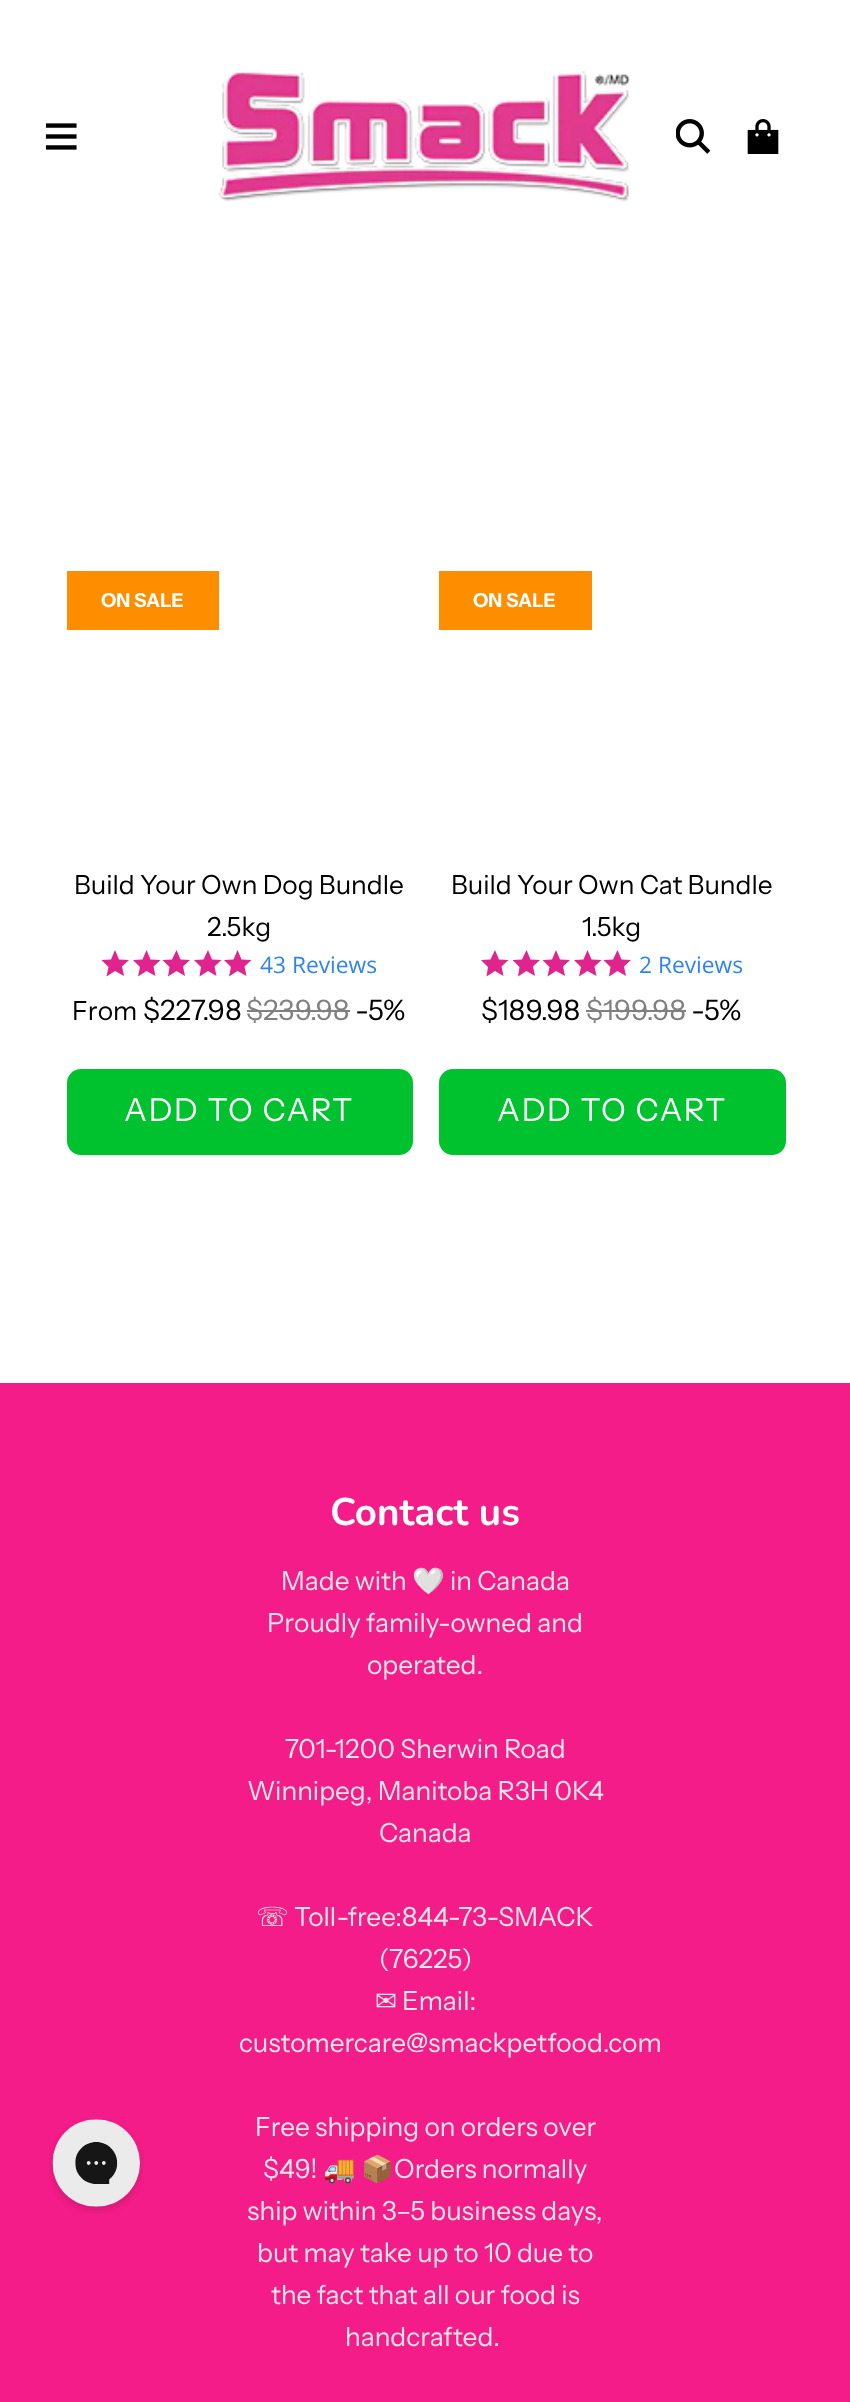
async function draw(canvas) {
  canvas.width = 850;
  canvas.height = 2402;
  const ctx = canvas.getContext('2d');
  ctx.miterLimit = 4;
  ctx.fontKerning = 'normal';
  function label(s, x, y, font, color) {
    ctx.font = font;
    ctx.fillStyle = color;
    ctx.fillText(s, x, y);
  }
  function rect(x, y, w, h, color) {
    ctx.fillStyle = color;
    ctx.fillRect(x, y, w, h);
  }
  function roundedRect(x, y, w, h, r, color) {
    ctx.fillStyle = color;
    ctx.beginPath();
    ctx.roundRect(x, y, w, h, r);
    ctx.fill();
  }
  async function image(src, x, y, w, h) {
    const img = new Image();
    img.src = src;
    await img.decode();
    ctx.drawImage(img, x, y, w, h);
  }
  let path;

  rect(0, 0, 850, 2402, '#fff');
  await image('assets/img1.png', 45, 123, 32, 27);
  await image('assets/img2.png', 218, 68, 413, 134);
  await image('assets/img3.png', 676, 119, 35, 35);
  await image('assets/img4.png', 747, 119, 32, 35);
  rect(67, 571, 152, 59, '#ff8d00');
  label('ON SALE', 101, 607, 'bold 19.25px Instrument Sans', '#fff');
  label('Build Your Own Dog Bundle', 74, 894, '26.25px Instrument Sans', '#000');
  label('2.5kg', 207, 936, '26.25px Instrument Sans', '#000');
  ctx.fillStyle = '#e1238d';
  path = new Path2D('M124 976L115 971L106.5 976.5L108.5 967L101.5 960L111 959.5L115 950L119 959.5L129 960L122 966.5ZM155.5 976L146.5 971L138 976.5L140 967L133 960L142.5 959.5L146.5 950L150.5 959.5L160.5 960L153.5 966.5Z');
  ctx.fill(path);
  path = new Path2D('M185 976L176.5 971L168 976.5L169.5 967L162.5 960L172 959.5L176.5 950L180.5 959.5L190 960L183 966.5ZM216.5 976L208 971L199.5 976.5L201 967L194 960L203.5 959.5L208 950L212 959.5L221.5 960L214.5 966.5Z');
  ctx.fill(path);
  path = new Path2D('M246.5 976L237.5 971L229 976.5L231 967L224 960L233.5 959.5L237.5 950L241.5 959.5L251.5 960L244.5 966.5Z');
  ctx.fill(path);
  label('43 Reviews', 260, 973, '22.75px Open Sans', '#2f84ed');
  label('From', 72, 1020, '26.25px Instrument Sans', '#000');
  label('$227.98', 143, 1020, '28px Instrument Sans', '#000');
  label('$239.98', 246, 1020, '28px Instrument Sans', '#808080');
  rect(247, 1010, 103, 2, '#808080');
  label('-5%', 355, 1020, '28px Instrument Sans', '#000');
  roundedRect(67, 1069, 346, 86, 14, '#00c12e');
  ctx.letterSpacing = '1.75px';
  label('ADD TO CART', 124, 1121, '31.5px Instrument Sans', '#fff');
  rect(439, 571, 153, 59, '#ff8d00');
  ctx.letterSpacing = '0px';
  label('ON SALE', 473, 607, 'bold 19.25px Instrument Sans', '#fff');
  label('Build Your Own Cat Bundle', 451, 894, '26.25px Instrument Sans', '#000');
  label('1.5kg', 582, 936, '26.25px Instrument Sans', '#000');
  ctx.fillStyle = '#e1238d';
  path = new Path2D('M503.5 976L495 971L486.5 976.5L488 967L481 960L490.5 959.5L495 950L499 959.5L508.5 960L501.5 966.5ZM535 976L526.5 971L518 976.5L519.5 967L512.5 960L522 959.5L526.5 950L530.5 959.5L540 960L533 966.5Z');
  ctx.fill(path);
  path = new Path2D('M565 976L556 971L547.5 976.5L549.5 967L542.5 960L552 959.5L556 950L560 959.5L570 960L563 966.5ZM596.5 976L587.5 971L579 976.5L581 967L574 960L583.5 959.5L587.5 950L591.5 959.5L601.5 960L594.5 966.5Z');
  ctx.fill(path);
  path = new Path2D('M626 976L617.5 971L609 976.5L610.5 967L603.5 960L613 959.5L617.5 950L621.5 959.5L631 960L624 966.5Z');
  ctx.fill(path);
  label('2 Reviews', 639, 973, '22.75px Open Sans', '#2f84ed');
  label('$189.98', 481, 1020, '28px Instrument Sans', '#000');
  label('$199.98', 586, 1020, '28px Instrument Sans', '#808080');
  rect(586, 1010, 100, 2, '#808080');
  label('-5%', 691, 1020, '28px Instrument Sans', '#000');
  roundedRect(439, 1069, 347, 86, 14, '#00c12e');
  ctx.letterSpacing = '1.75px';
  label('ADD TO CART', 497, 1121, '31.5px Instrument Sans', '#fff');
  rect(0, 1383, 850, 1019, '#f41c88');
  await image('assets/img5.png', 49, 2119, 95, 95);
  ctx.letterSpacing = '0px';
  label('Contact us', 330, 1525, 'bold 38.5px Nunito', '#fff');
  label('Made with', 281, 1590, '26.25px Instrument Sans', '#e6e6e6');
  label('🤍', 412, 1590, '26.25px Noto Color Emoji', '#e6e6e6');
  label('in Canada', 450, 1590, '26.25px Instrument Sans', '#e6e6e6');
  label('Proudly family-owned and', 267, 1632, '26.25px Instrument Sans', '#e6e6e6');
  label('operated.', 367, 1674, '26.25px Instrument Sans', '#e6e6e6');
  label('701-1200 Sherwin Road', 285, 1758, '26.25px Instrument Sans', '#e6e6e6');
  label('Winnipeg, Manitoba R3H 0K4', 247, 1800, '26.25px Instrument Sans', '#e6e6e6');
  label('Canada', 379, 1842, '26.25px Instrument Sans', '#e6e6e6');
  label('☏', 256, 1926, '26.25px DejaVu Sans', '#e6e6e6');
  label('Toll-free:844-73-SMACK', 294, 1926, '26.25px Instrument Sans', '#e6e6e6');
  label('(76225)', 379, 1968, '26.25px Instrument Sans', '#e6e6e6');
  label('✉', 375, 2010, '26.25px DejaVu Sans', '#e6e6e6');
  label('Email:', 402, 2010, '26.25px Instrument Sans', '#e6e6e6');
  label('customercare@smackpetfood.com', 239, 2052, '26.25px Instrument Sans', '#e6e6e6');
  label('Free shipping on orders over', 255, 2136, '26.25px Instrument Sans', '#e6e6e6');
  label('$49!', 263, 2178, '26.25px Instrument Sans', '#e6e6e6');
  label('🚚', 323, 2178, '26.25px Noto Color Emoji', '#e6e6e6');
  label('📦', 361, 2178, '26.25px Noto Color Emoji', '#e6e6e6');
  label('Orders normally', 394, 2178, '26.25px Instrument Sans', '#e6e6e6');
  label('ship within 3–5 business days,', 247, 2220, '26.25px Instrument Sans', '#e6e6e6');
  label('but may take up to 10 due to', 257, 2262, '26.25px Instrument Sans', '#e6e6e6');
  label('the fact that all our food is', 271, 2304, '26.25px Instrument Sans', '#e6e6e6');
  label('handcrafted.', 345, 2346, '26.25px Instrument Sans', '#e6e6e6');
}

draw(document.querySelector('canvas'));
